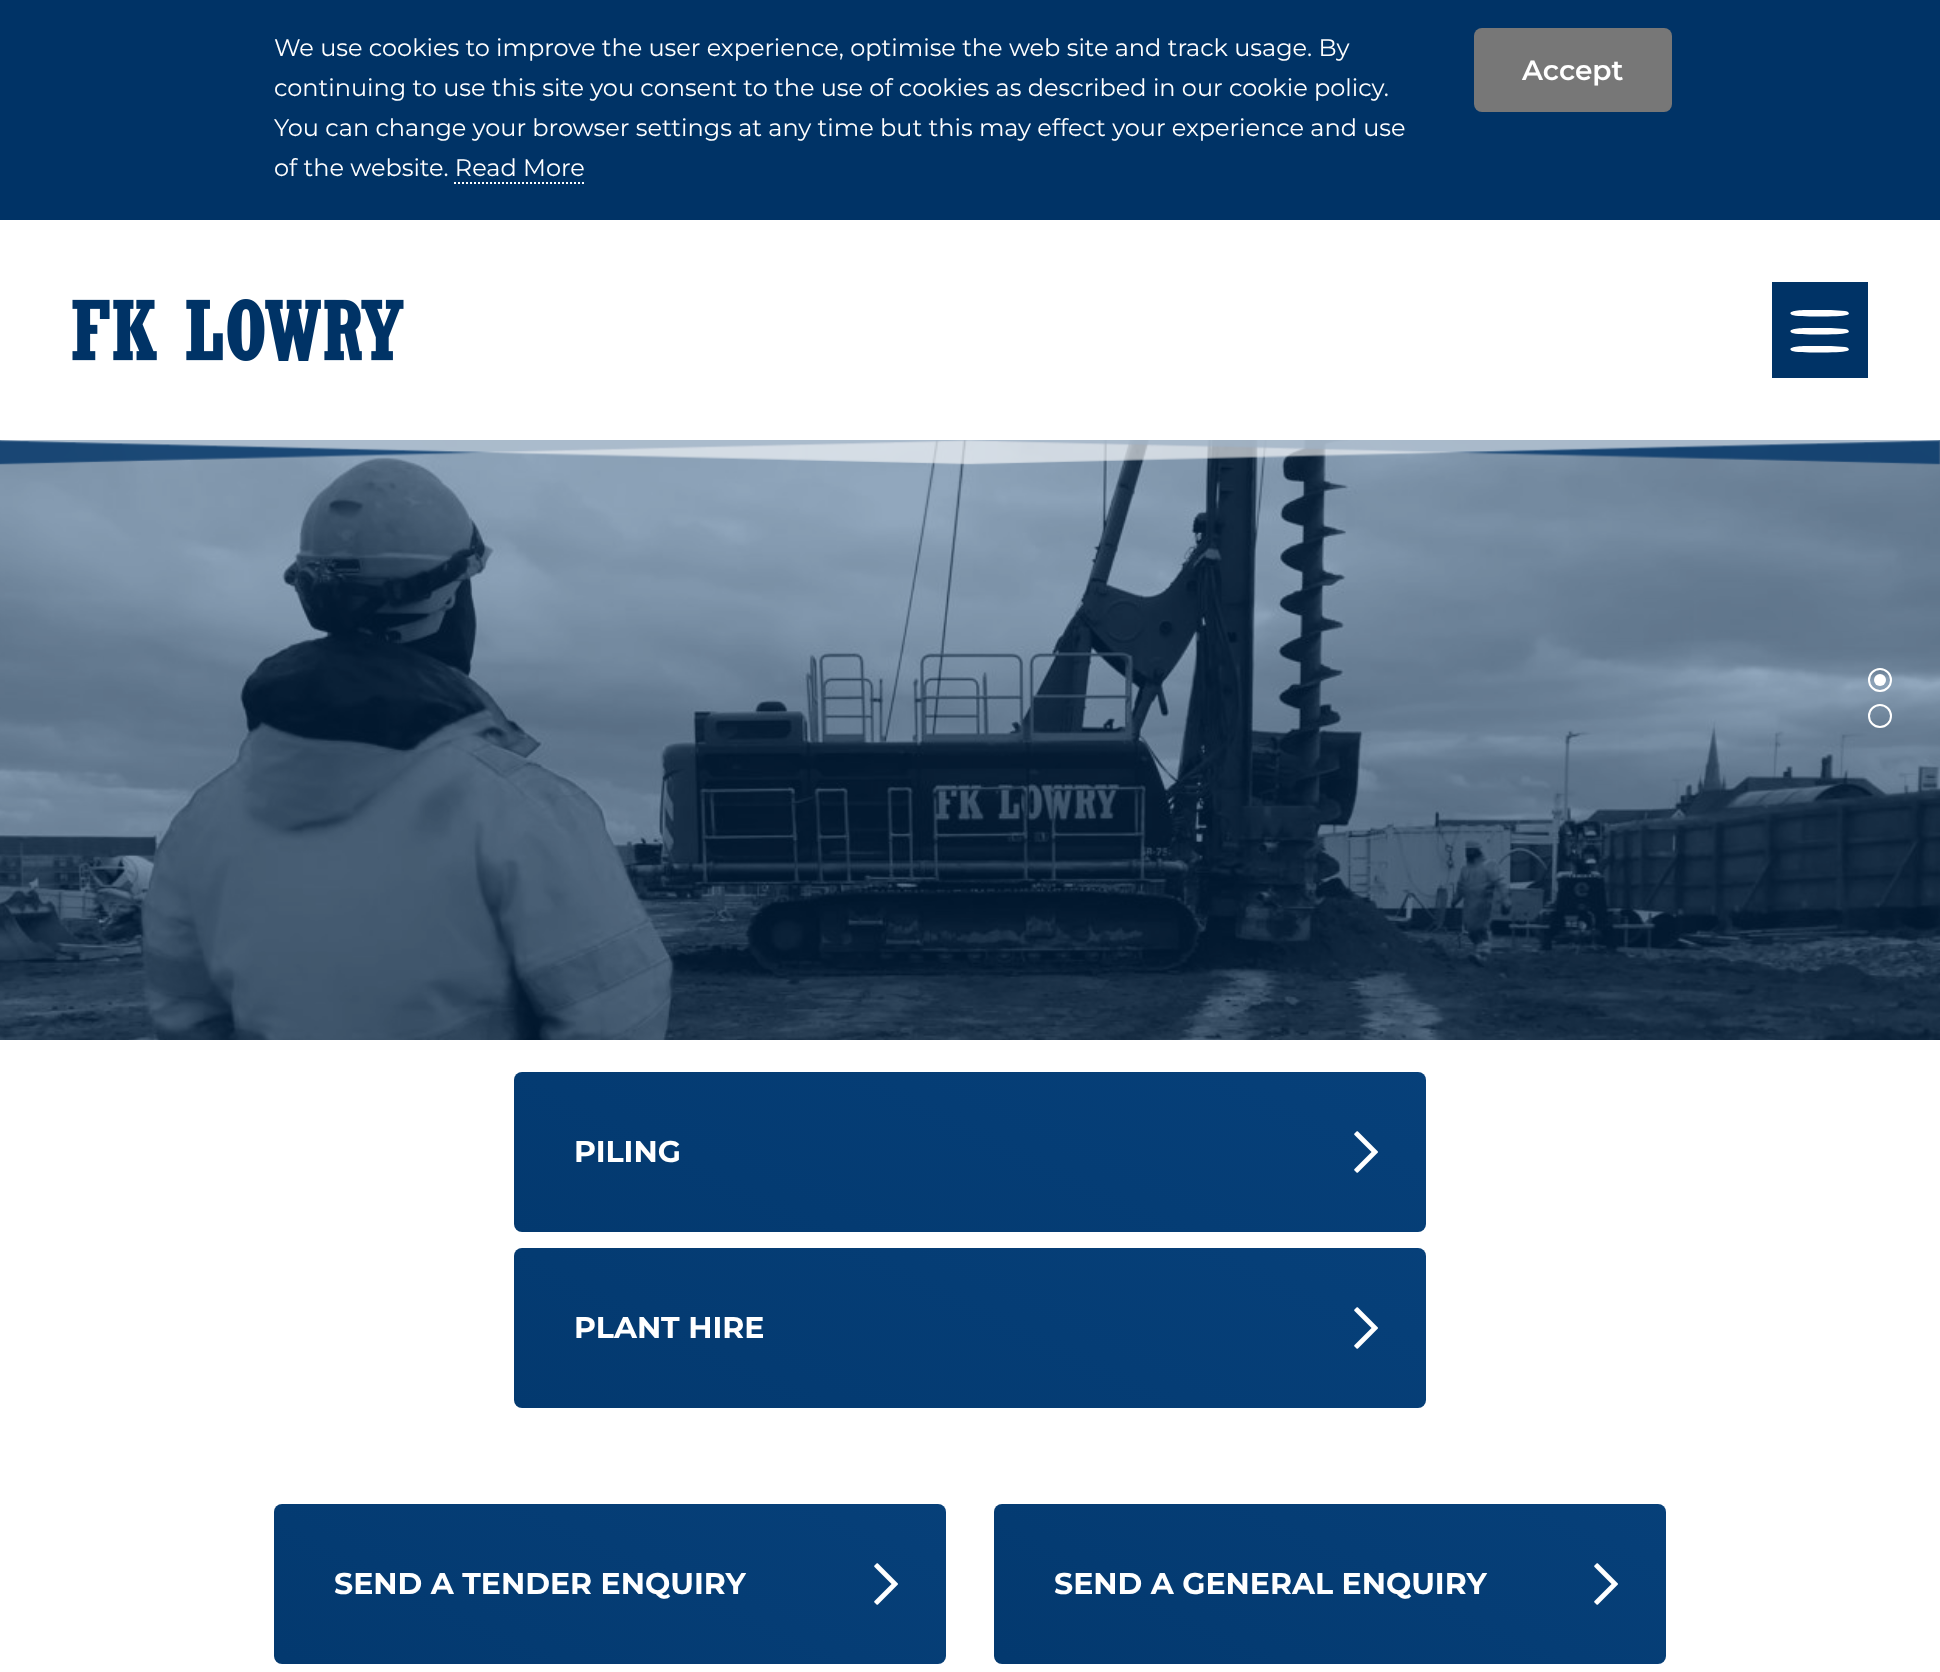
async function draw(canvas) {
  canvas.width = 1940;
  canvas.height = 1672;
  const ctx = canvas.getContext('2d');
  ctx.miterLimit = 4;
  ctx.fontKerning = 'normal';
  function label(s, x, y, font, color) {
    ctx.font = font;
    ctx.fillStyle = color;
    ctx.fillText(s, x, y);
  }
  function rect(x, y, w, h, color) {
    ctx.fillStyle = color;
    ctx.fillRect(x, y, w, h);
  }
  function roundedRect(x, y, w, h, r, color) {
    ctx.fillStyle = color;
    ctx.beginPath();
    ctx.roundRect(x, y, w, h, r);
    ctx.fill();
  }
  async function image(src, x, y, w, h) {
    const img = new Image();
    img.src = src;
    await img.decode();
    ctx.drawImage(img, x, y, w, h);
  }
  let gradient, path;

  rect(0, 0, 1940, 1672, '#fff');
  rect(0, 0, 1940, 220, '#036');
  label('We use cookies to improve the user experience, optimise the web site and track usage. By', 274, 56, '24px Montserrat', '#fff');
  label('continuing to use this site you consent to the use of cookies as described in our cookie policy.', 274, 96, '24px Montserrat', '#fff');
  label('You can change your browser settings at any time but this may effect your experience and use', 274, 136, '24px Montserrat', '#fff');
  label('of the website. Read More', 274, 176, '24px Montserrat', '#fff');
  path = new Path2D('M454 183H584');
  ctx.strokeStyle = '#fff';
  ctx.lineWidth = 2;
  ctx.setLineDash([2, 2]);
  ctx.stroke(path);
  roundedRect(1474, 28, 198, 84, 8, '#777');
  label('Accept', 1522, 80, '600 28px Montserrat', '#fff');
  await image('assets/img1.png', 72, 299, 332, 62);
  rect(1772, 282, 96, 96, '#036');
  ctx.fillStyle = '#fff';
  path = new Path2D('M1809 310H1831L1845 311C1848 311 1851 314 1847 315C1840 317 1797 317 1792 315C1786 311 1799 310 1809 310ZM1809 328H1831L1845 329C1848 329 1851 332 1847 333C1840 335 1797 335 1792 333C1786 329 1799 328 1809 328ZM1809 346H1831L1845 347C1848 347 1851 350 1847 351C1840 353 1797 353 1792 351C1786 347 1799 346 1809 346Z');
  ctx.fill(path);
  await image('assets/img3.png', 0, 440, 1940, 600);
  await image('assets/img2.png', 0, 440, 1940, 25);
  ctx.beginPath();
  ctx.arc(1880, 680, 11, 0, 2 * Math.PI);
  ctx.setLineDash([]);
  ctx.stroke();
  ctx.beginPath();
  ctx.arc(1880, 680, 6, 0, 2 * Math.PI);
  ctx.fill();
  ctx.beginPath();
  ctx.arc(1880, 716, 11, 0, 2 * Math.PI);
  ctx.stroke();
  gradient = ctx.createLinearGradient(752, 663, 276, 1641);
  gradient.addColorStop(0, '#07417b');
  gradient.addColorStop(1, '#036');
  ctx.fillStyle = gradient;
  ctx.beginPath();
  ctx.roundRect(514, 1072, 912, 160, 8);
  ctx.fill();
  label('PILING', 574, 1162, 'bold 30px Montserrat', '#fff');
  await image('assets/img4.png', 1354, 1131, 24, 42);
  gradient = ctx.createLinearGradient(752, 839, 276, 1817);
  gradient.addColorStop(0, '#07417b');
  gradient.addColorStop(1, '#036');
  ctx.fillStyle = gradient;
  ctx.beginPath();
  ctx.roundRect(514, 1248, 912, 160, 8);
  ctx.fill();
  label('PLANT HIRE', 574, 1338, 'bold 30px Montserrat', '#fff');
  await image('assets/img4.png', 1354, 1307, 24, 42);
  gradient = ctx.createLinearGradient(466, 1190, 82, 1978);
  gradient.addColorStop(0, '#07417b');
  gradient.addColorStop(1, '#036');
  ctx.fillStyle = gradient;
  ctx.beginPath();
  ctx.roundRect(274, 1504, 672, 160, 8);
  ctx.fill();
  label('SEND A TENDER ENQUIRY', 334, 1594, 'bold 30px Montserrat', '#fff');
  await image('assets/img5.png', 874, 1563, 24, 42);
  gradient = ctx.createLinearGradient(1186, 1190, 802, 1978);
  gradient.addColorStop(0, '#07417b');
  gradient.addColorStop(1, '#036');
  ctx.fillStyle = gradient;
  ctx.beginPath();
  ctx.roundRect(994, 1504, 672, 160, 8);
  ctx.fill();
  label('SEND A GENERAL ENQUIRY', 1054, 1594, 'bold 30px Montserrat', '#fff');
  await image('assets/img5.png', 1594, 1563, 24, 42);
}

draw(document.querySelector('canvas'));
